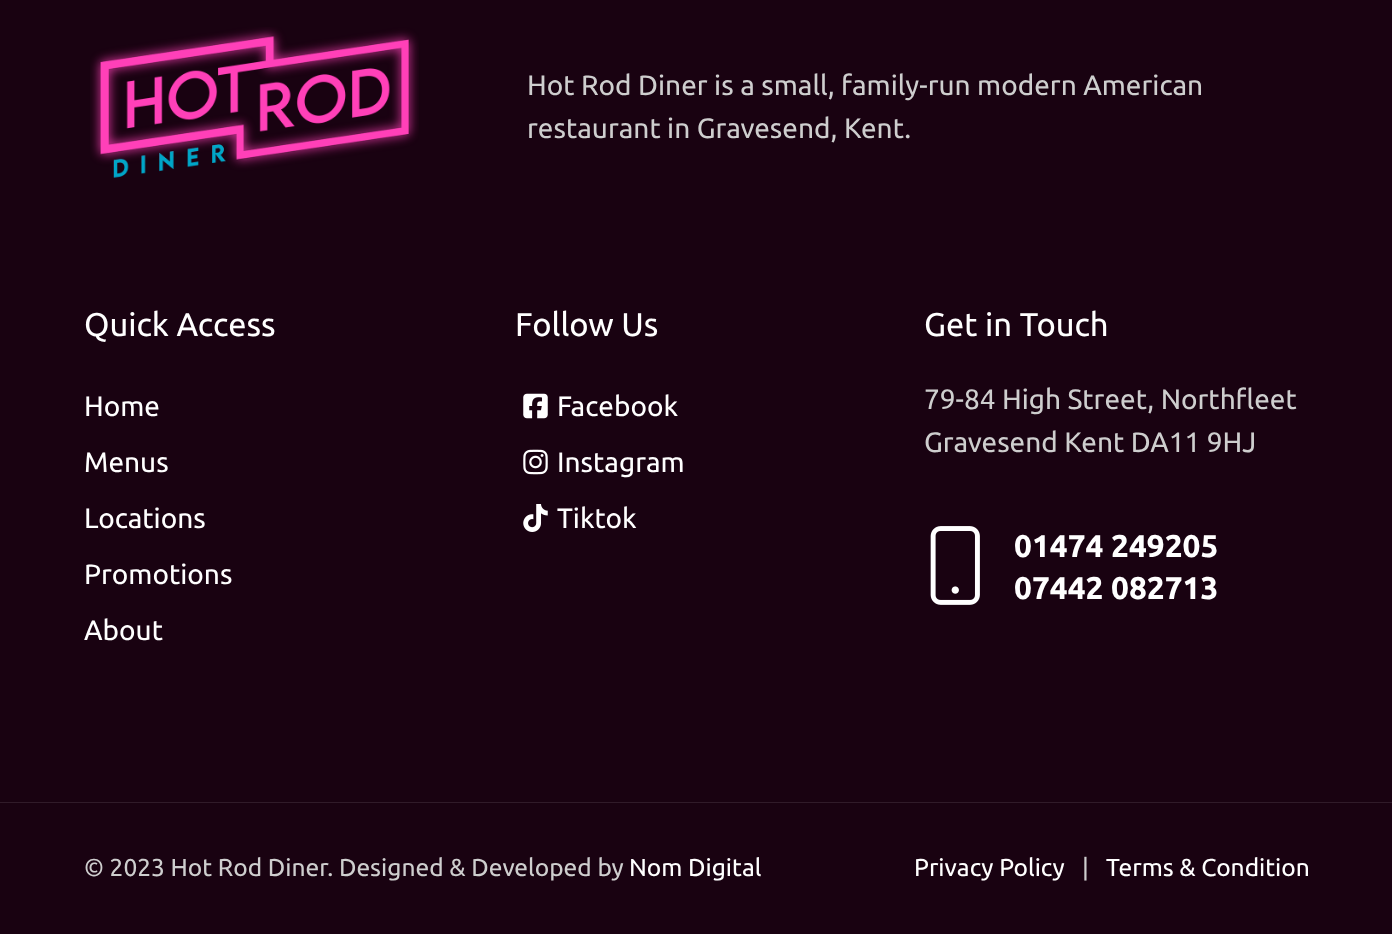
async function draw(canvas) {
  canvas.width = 1392;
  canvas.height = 934;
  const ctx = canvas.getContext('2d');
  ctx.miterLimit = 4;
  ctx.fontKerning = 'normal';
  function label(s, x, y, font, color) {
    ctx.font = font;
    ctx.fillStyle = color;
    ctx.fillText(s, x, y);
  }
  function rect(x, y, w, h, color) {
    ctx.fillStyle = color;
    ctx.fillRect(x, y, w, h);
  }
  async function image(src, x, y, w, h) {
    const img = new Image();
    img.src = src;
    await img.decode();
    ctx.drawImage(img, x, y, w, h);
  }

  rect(0, 0, 1392, 934, '#190211');
  rect(0, 802, 1392, 1, '#301b29');
  await image('assets/img1.png', 90, 27, 329, 151);
  label('Hot Rod Diner is a small, family-run modern American', 527, 95, '28px Ubuntu', '#cecece');
  label('restaurant in Gravesend, Kent.', 527, 138, '28px Ubuntu', '#cecece');
  label('Quick Access', 84, 336, '32.75px Ubuntu', '#fff');
  label('Home', 84, 416, '28px Ubuntu', '#fff');
  label('Menus', 84, 472, '28px Ubuntu', '#fff');
  label('Locations', 84, 528, '28px Ubuntu', '#fff');
  label('Promotions', 84, 584, '28px Ubuntu', '#fff');
  label('About', 84, 640, '28px Ubuntu', '#fff');
  label('Follow Us', 515, 336, '32.75px Ubuntu', '#fff');
  await image('assets/img2.png', 523, 393, 25, 26);
  label('Facebook', 557, 416, '28px Ubuntu', '#fff');
  await image('assets/img3.png', 523, 449, 25, 26);
  label('Instagram', 557, 472, '28px Ubuntu', '#fff');
  await image('assets/img4.png', 523, 504, 25, 28);
  label('Tiktok', 557, 528, '28px Ubuntu', '#fff');
  label('Get in Touch', 924, 336, '32.75px Ubuntu', '#fff');
  label('79-84 High Street, Northfleet', 924, 409, '28px Ubuntu', '#cecece');
  label('Gravesend Kent DA11 9HJ', 924, 452, '28px Ubuntu', '#cecece');
  await image('assets/img5.png', 930, 526, 50, 79);
  label('01474 249205', 1014, 557, 'bold 31.5px Ubuntu', '#fff');
  label('07442 082713', 1014, 599, 'bold 31.5px Ubuntu', '#fff');
  label('© 2023 Hot Rod Diner. Designed & Developed by', 84, 876, '24.5px Ubuntu', '#cecece');
  label('Nom Digital', 629, 876, '24.5px Ubuntu', '#fff');
  label('Privacy Policy', 914, 876, '24.5px Ubuntu', '#fff');
  label('|', 1082, 876, '24.5px Ubuntu', '#cecece');
  label('Terms & Condition', 1106, 876, '24.5px Ubuntu', '#fff');
}

draw(document.querySelector('canvas'));
